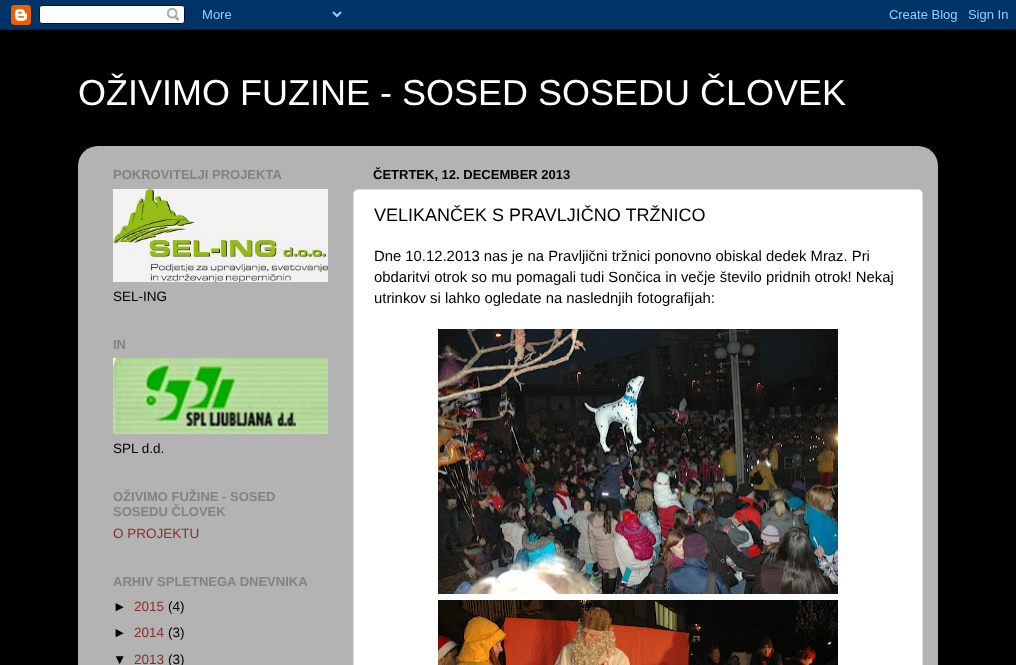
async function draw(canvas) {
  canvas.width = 1016;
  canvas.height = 665;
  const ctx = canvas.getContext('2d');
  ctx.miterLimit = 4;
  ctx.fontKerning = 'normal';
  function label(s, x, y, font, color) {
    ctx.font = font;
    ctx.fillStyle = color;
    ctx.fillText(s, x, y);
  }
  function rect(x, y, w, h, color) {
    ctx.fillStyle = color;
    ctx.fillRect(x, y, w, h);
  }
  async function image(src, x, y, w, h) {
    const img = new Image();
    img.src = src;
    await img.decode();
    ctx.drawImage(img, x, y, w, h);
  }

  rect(0, 0, 1016, 665, '#000');
  await image('assets/img1.png', 0, 0, 1016, 30);
  label('OŽIVIMO FUZINE - SOSED SOSEDU ČLOVEK', 78, 105, '36px Liberation Sans', '#fff');
  await image('assets/img2.png', 78, 146, 860, 519);
  label('POKROVITELJI PROJEKTA', 113, 179, 'bold 13px Liberation Sans', '#828282');
  await image('assets/img3.png', 113, 189, 215, 93);
  label('SEL-ING', 113, 301, '13.5px Liberation Sans', '#000');
  label('IN', 113, 349, 'bold 13px Liberation Sans', '#828282');
  await image('assets/img4.png', 113, 358, 215, 76);
  label('SPL d.d.', 113, 453, '13.5px Liberation Sans', '#000');
  label('OŽIVIMO FUŽINE - SOSED', 113, 501, 'bold 13px Liberation Sans', '#828282');
  label('SOSEDU ČLOVEK', 113, 516, 'bold 13px Liberation Sans', '#828282');
  label('O PROJEKTU', 113, 538, '13.5px Liberation Sans', '#8a2e2e');
  label('ARHIV SPLETNEGA DNEVNIKA', 113, 586, 'bold 13px Liberation Sans', '#828282');
  label('►', 113, 611, '13.5px Liberation Sans', '#000');
  label('2015', 134, 611, '13.5px Liberation Sans', '#8a2e2e');
  label('(4)', 168, 611, '13.5px Liberation Sans', '#000');
  label('►', 113, 637, '13.5px Liberation Sans', '#000');
  label('2014', 134, 637, '13.5px Liberation Sans', '#8a2e2e');
  label('(3)', 168, 637, '13.5px Liberation Sans', '#000');
  label('▼', 113, 664, '13.5px Liberation Sans', '#000');
  label('2013', 134, 664, '13.5px Liberation Sans', '#8a2e2e');
  label('(3)', 168, 664, '13.5px Liberation Sans', '#000');
  label('ČETRTEK, 12. DECEMBER 2013', 373, 179, 'bold 13px Liberation Sans', '#000');
  ctx.fillStyle = '#fff';
  ctx.beginPath();
  ctx.roundRect(353.5, 189.5, 569, 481, 4.5);
  ctx.fill();
  ctx.strokeStyle = '#dbdbdb';
  ctx.stroke();
  label('VELIKANČEK S PRAVLJIČNO TRŽNICO', 374, 221, '18px Liberation Sans', '#000');
  label('Dne 10.12.2013 nas je na Pravljični tržnici ponovno obiskal dedek Mraz. Pri', 374, 261, '14.85px Liberation Sans', '#000');
  label('obdaritvi otrok so mu pomagali tudi Sončica in večje število pridnih otrok! Nekaj', 374, 282, '14.85px Liberation Sans', '#000');
  label('utrinkov si lahko ogledate na naslednjih fotografijah:', 374, 303, '14.85px Liberation Sans', '#000');
  await image('assets/img5.png', 438, 329, 400, 265);
  await image('assets/img6.png', 438, 600, 400, 65);
}

draw(document.querySelector('canvas'));
